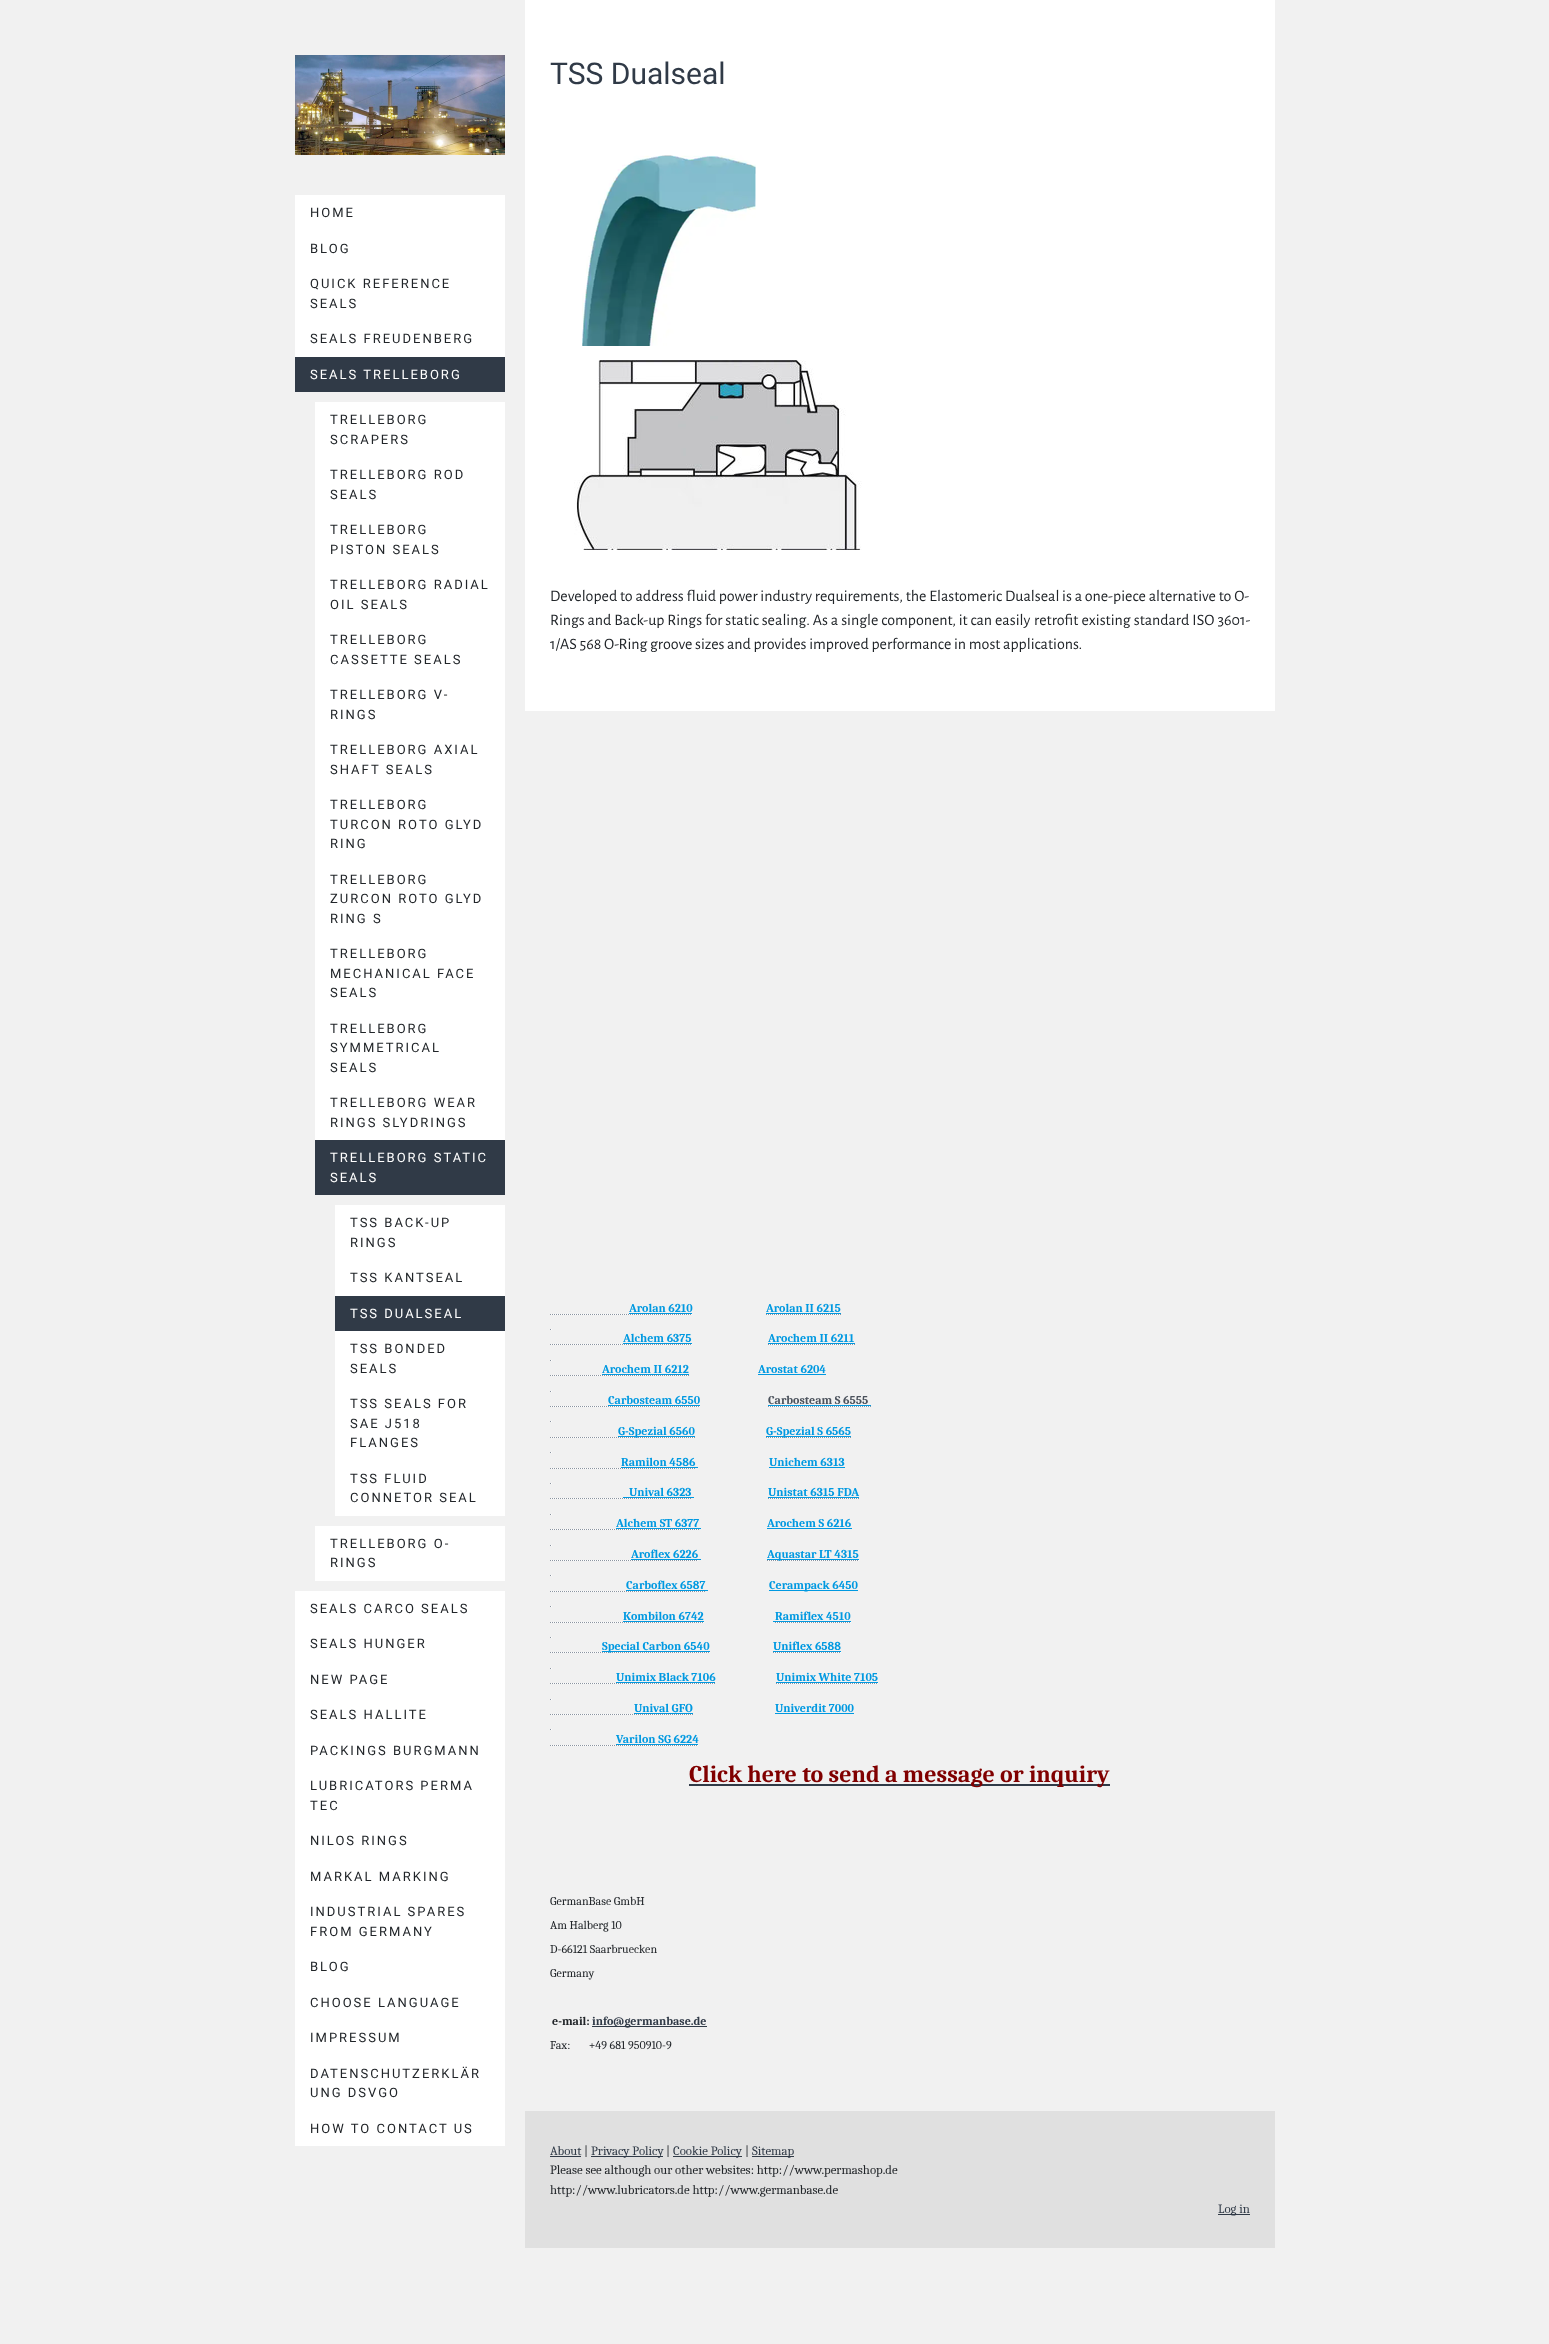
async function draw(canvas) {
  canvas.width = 1549;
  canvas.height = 2344;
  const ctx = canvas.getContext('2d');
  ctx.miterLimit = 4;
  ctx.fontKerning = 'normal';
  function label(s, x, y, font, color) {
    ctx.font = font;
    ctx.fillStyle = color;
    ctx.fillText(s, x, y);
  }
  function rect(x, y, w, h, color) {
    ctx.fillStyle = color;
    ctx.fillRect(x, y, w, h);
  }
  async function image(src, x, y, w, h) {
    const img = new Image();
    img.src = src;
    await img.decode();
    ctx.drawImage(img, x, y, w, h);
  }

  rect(0, 0, 1549, 2344, '#f1f1f1');
  await image('assets/img1.png', 295, 55, 210, 100);
  rect(295, 195, 210, 162, '#fff');
  ctx.letterSpacing = '2px';
  label('HOME', 310, 217, '13px Roboto', '#212529');
  label('BLOG', 310, 253, '13px Roboto', '#212529');
  label('QUICK REFERENCE', 310, 288, '13px Roboto', '#212529');
  label('SEALS', 310, 308, '13px Roboto', '#212529');
  label('SEALS FREUDENBERG', 310, 343, '13px Roboto', '#212529');
  rect(295, 357, 210, 35, '#303a47');
  label('SEALS TRELLEBORG', 310, 379, '13px Roboto', '#fff');
  rect(315, 402, 190, 738, '#fff');
  label('TRELLEBORG', 330, 424, '13px Roboto', '#212529');
  label('SCRAPERS', 330, 444, '13px Roboto', '#212529');
  label('TRELLEBORG ROD', 330, 479, '13px Roboto', '#212529');
  label('SEALS', 330, 499, '13px Roboto', '#212529');
  label('TRELLEBORG', 330, 534, '13px Roboto', '#212529');
  label('PISTON SEALS', 330, 554, '13px Roboto', '#212529');
  label('TRELLEBORG RADIAL', 330, 589, '13px Roboto', '#212529');
  label('OIL SEALS', 330, 609, '13px Roboto', '#212529');
  label('TRELLEBORG', 330, 644, '13px Roboto', '#212529');
  label('CASSETTE SEALS', 330, 664, '13px Roboto', '#212529');
  label('TRELLEBORG V-', 330, 699, '13px Roboto', '#212529');
  label('RINGS', 330, 719, '13px Roboto', '#212529');
  label('TRELLEBORG AXIAL', 330, 754, '13px Roboto', '#212529');
  label('SHAFT SEALS', 330, 774, '13px Roboto', '#212529');
  label('TRELLEBORG', 330, 809, '13px Roboto', '#212529');
  label('TURCON ROTO GLYD', 330, 829, '13px Roboto', '#212529');
  label('RING', 330, 848, '13px Roboto', '#212529');
  label('TRELLEBORG', 330, 884, '13px Roboto', '#212529');
  label('ZURCON ROTO GLYD', 330, 903, '13px Roboto', '#212529');
  label('RING S', 330, 923, '13px Roboto', '#212529');
  label('TRELLEBORG', 330, 958, '13px Roboto', '#212529');
  label('MECHANICAL FACE', 330, 978, '13px Roboto', '#212529');
  label('SEALS', 330, 997, '13px Roboto', '#212529');
  label('TRELLEBORG', 330, 1033, '13px Roboto', '#212529');
  label('SYMMETRICAL', 330, 1052, '13px Roboto', '#212529');
  label('SEALS', 330, 1072, '13px Roboto', '#212529');
  label('TRELLEBORG WEAR', 330, 1107, '13px Roboto', '#212529');
  label('RINGS SLYDRINGS', 330, 1127, '13px Roboto', '#212529');
  rect(315, 1140, 190, 55, '#303a47');
  label('TRELLEBORG STATIC', 330, 1162, '13px Roboto', '#fff');
  label('SEALS', 330, 1182, '13px Roboto', '#fff');
  rect(335, 1205, 170, 91, '#fff');
  label('TSS BACK-UP', 350, 1227, '13px Roboto', '#212529');
  label('RINGS', 350, 1247, '13px Roboto', '#212529');
  label('TSS KANTSEAL', 350, 1282, '13px Roboto', '#212529');
  rect(335, 1296, 170, 35, '#303a47');
  label('TSS DUALSEAL', 350, 1318, '13px Roboto', '#fff');
  rect(335, 1331, 170, 185, '#fff');
  label('TSS BONDED', 350, 1353, '13px Roboto', '#212529');
  label('SEALS', 350, 1373, '13px Roboto', '#212529');
  label('TSS SEALS FOR', 350, 1408, '13px Roboto', '#212529');
  label('SAE J518', 350, 1428, '13px Roboto', '#212529');
  label('FLANGES', 350, 1447, '13px Roboto', '#212529');
  label('TSS FLUID', 350, 1483, '13px Roboto', '#212529');
  label('CONNETOR SEAL', 350, 1502, '13px Roboto', '#212529');
  rect(315, 1526, 190, 55, '#fff');
  label('TRELLEBORG O-', 330, 1548, '13px Roboto', '#212529');
  label('RINGS', 330, 1567, '13px Roboto', '#212529');
  rect(295, 1591, 210, 555, '#fff');
  label('SEALS CARCO SEALS', 310, 1613, '13px Roboto', '#212529');
  label('SEALS HUNGER', 310, 1648, '13px Roboto', '#212529');
  label('NEW PAGE', 310, 1684, '13px Roboto', '#212529');
  label('SEALS HALLITE', 310, 1719, '13px Roboto', '#212529');
  label('PACKINGS BURGMANN', 310, 1755, '13px Roboto', '#212529');
  label('LUBRICATORS PERMA', 310, 1790, '13px Roboto', '#212529');
  label('TEC', 310, 1810, '13px Roboto', '#212529');
  label('NILOS RINGS', 310, 1845, '13px Roboto', '#212529');
  label('MARKAL MARKING', 310, 1881, '13px Roboto', '#212529');
  label('INDUSTRIAL SPARES', 310, 1916, '13px Roboto', '#212529');
  label('FROM GERMANY', 310, 1936, '13px Roboto', '#212529');
  label('BLOG', 310, 1971, '13px Roboto', '#212529');
  label('CHOOSE LANGUAGE', 310, 2007, '13px Roboto', '#212529');
  label('IMPRESSUM', 310, 2042, '13px Roboto', '#212529');
  label('DATENSCHUTZERKLÄR', 310, 2078, '13px Roboto', '#212529');
  label('UNG DSVGO', 310, 2097, '13px Roboto', '#212529');
  label('HOW TO CONTACT US', 310, 2133, '13px Roboto', '#212529');
  rect(525, 0, 750, 711, '#fff');
  ctx.letterSpacing = '0px';
  label('TSS Dualseal', 550, 84, '30px Roboto', '#303a47');
  await image('assets/img2.png', 582, 155, 174, 191);
  await image('assets/img3.png', 574, 360, 288, 190);
  ctx.wordSpacing = '0.1px';
  label('Developed to address fluid power industry requirements, the Elastomeric Dualseal is a one-piece alternative to O-', 550, 601, '16px Alegreya Sans', '#212529');
  ctx.wordSpacing = '0.25px';
  label('Rings and Back-up Rings for static sealing. As a single component, it can easily', 550, 625, '16px Alegreya Sans', '#212529');
  ctx.wordSpacing = '0.5px';
  label('retrofit existing standard ISO 3601-', 1034, 625, '16px Alegreya Sans', '#212529');
  ctx.wordSpacing = '0px';
  label('1/AS 568 O-Ring groove sizes and provides improved performance in most applications.', 550, 649, '16px Alegreya Sans', '#212529');
  label('Arolan 6210', 629, 1312, 'bold 12px Caladea', '#0099e1');
  rect(629, 1313, 63, 1, '#0099e1');
  label('Arolan II 6215', 766, 1312, 'bold 12px Caladea', '#0099e1');
  rect(766, 1313, 75, 1, '#0099e1');
  await image('assets/img4.png', 550, 1314, 142, 1);
  await image('assets/img5.png', 766, 1314, 75, 1);
  await image('assets/img6.png', 550, 1329, 2, 1);
  label('Alchem 6375', 623, 1342, 'bold 12px Caladea', '#0099e1');
  rect(623, 1343, 69, 1, '#0099e1');
  label('Arochem II 6211', 768, 1342, 'bold 12px Caladea', '#0099e1');
  rect(768, 1343, 87, 1, '#0099e1');
  await image('assets/img4.png', 550, 1344, 142, 1);
  await image('assets/img7.png', 768, 1344, 87, 1);
  await image('assets/img6.png', 550, 1360, 2, 1);
  label('Arochem II 6212', 602, 1373, 'bold 12px Caladea', '#0099e1');
  rect(602, 1374, 87, 1, '#0099e1');
  label('Arostat 6204', 758, 1373, 'bold 12px Caladea', '#0099e1');
  rect(758, 1374, 68, 1, '#0099e1');
  await image('assets/img8.png', 550, 1375, 139, 1);
  await image('assets/img6.png', 550, 1391, 2, 1);
  label('Carbosteam 6550', 608, 1404, 'bold 12px Caladea', '#0099e1');
  rect(608, 1405, 92, 1, '#0099e1');
  label('Carbosteam S 6555', 768, 1404, 'bold 12px Caladea', '#4b525c');
  rect(768, 1405, 103, 1, '#0099e1');
  await image('assets/img9.png', 550, 1406, 150, 1);
  await image('assets/img10.png', 768, 1406, 103, 1);
  await image('assets/img6.png', 550, 1421, 2, 1);
  rect(618, 1436, 77, 1, '#0099e1');
  await image('assets/img11.png', 550, 1437, 145, 1);
  label('G-Spezial 6560', 618, 1435, 'bold 12px Caladea', '#0099e1');
  rect(766, 1436, 85, 1, '#0099e1');
  await image('assets/img12.png', 766, 1437, 85, 1);
  label('G-Spezial S 6565', 766, 1435, 'bold 12px Caladea', '#0099e1');
  await image('assets/img6.png', 550, 1452, 2, 1);
  label('Ramilon 4586', 621, 1466, 'bold 12px Caladea', '#0099e1');
  rect(621, 1467, 77, 1, '#0099e1');
  label('Unichem 6313', 769, 1466, 'bold 12px Caladea', '#0099e1');
  rect(769, 1467, 76, 1, '#0099e1');
  await image('assets/img11.png', 550, 1468, 145, 1);
  await image('assets/img6.png', 550, 1483, 2, 1);
  label('Unival 6323', 629, 1496, 'bold 12px Caladea', '#0099e1');
  rect(623, 1497, 71, 1, '#0099e1');
  label('Unistat 6315 FDA', 768, 1496, 'bold 12px Caladea', '#0099e1');
  rect(768, 1497, 91, 1, '#0099e1');
  await image('assets/img13.png', 550, 1498, 141, 1);
  await image('assets/img14.png', 768, 1498, 91, 1);
  await image('assets/img6.png', 550, 1514, 2, 1);
  label('Alchem ST 6377', 616, 1527, 'bold 12px Caladea', '#0099e1');
  rect(616, 1528, 85, 1, '#0099e1');
  label('Arochem S 6216', 767, 1527, 'bold 12px Caladea', '#0099e1');
  rect(767, 1528, 85, 1, '#0099e1');
  await image('assets/img15.png', 550, 1529, 149, 1);
  await image('assets/img6.png', 550, 1545, 2, 1);
  label('Aroflex 6226', 631, 1558, 'bold 12px Caladea', '#0099e1');
  rect(631, 1559, 70, 1, '#0099e1');
  rect(767, 1559, 92, 1, '#0099e1');
  await image('assets/img17.png', 767, 1560, 92, 1);
  label('Aquastar LT 4315', 767, 1558, 'bold 12px Caladea', '#0099e1');
  await image('assets/img16.png', 550, 1560, 148, 1);
  await image('assets/img6.png', 550, 1575, 2, 1);
  label('Carboflex 6587', 626, 1589, 'bold 12px Caladea', '#0099e1');
  rect(626, 1590, 82, 1, '#0099e1');
  rect(769, 1590, 89, 1, '#0099e1');
  label('Cerampack 6450', 769, 1589, 'bold 12px Caladea', '#0099e1');
  await image('assets/img18.png', 550, 1591, 155, 1);
  await image('assets/img6.png', 550, 1606, 2, 1);
  label('Kombilon 6742', 623, 1620, 'bold 12px Caladea', '#0099e1');
  rect(623, 1621, 81, 1, '#0099e1');
  label('Ramiflex 4510', 775, 1620, 'bold 12px Caladea', '#0099e1');
  rect(773, 1621, 78, 1, '#0099e1');
  await image('assets/img19.png', 550, 1622, 154, 1);
  await image('assets/img20.png', 775, 1622, 76, 1);
  await image('assets/img6.png', 550, 1637, 2, 1);
  rect(602, 1651, 108, 1, '#0099e1');
  await image('assets/img21.png', 550, 1652, 160, 1);
  label('Special Carbon 6540', 602, 1650, 'bold 12px Caladea', '#0099e1');
  label('Uniflex 6588', 773, 1650, 'bold 12px Caladea', '#0099e1');
  rect(773, 1651, 68, 1, '#0099e1');
  await image('assets/img22.png', 773, 1652, 68, 1);
  await image('assets/img6.png', 550, 1668, 2, 1);
  label('Unimix Black 7106', 616, 1681, 'bold 12px Caladea', '#0099e1');
  rect(616, 1682, 99, 1, '#0099e1');
  label('Unimix White 7105', 776, 1681, 'bold 12px Caladea', '#0099e1');
  rect(776, 1682, 102, 1, '#0099e1');
  await image('assets/img23.png', 550, 1683, 165, 1);
  await image('assets/img24.png', 776, 1683, 102, 1);
  await image('assets/img6.png', 550, 1699, 2, 1);
  label('Unival GFO', 634, 1712, 'bold 12px Caladea', '#0099e1');
  rect(634, 1713, 59, 1, '#0099e1');
  label('Univerdit 7000', 775, 1712, 'bold 12px Caladea', '#0099e1');
  rect(775, 1713, 79, 1, '#0099e1');
  await image('assets/img25.png', 550, 1714, 143, 1);
  await image('assets/img6.png', 550, 1729, 2, 1);
  label('Varilon SG 6224', 616, 1743, 'bold 12px Caladea', '#0099e1');
  rect(616, 1744, 82, 1, '#0099e1');
  await image('assets/img16.png', 550, 1745, 148, 1);
  rect(689, 1784, 421, 2, '#303a47');
  label('Click here to send a message or inquiry', 689, 1782, 'bold 24px Caladea', '#800000');
  label('GermanBase GmbH', 550, 1905, '12px Caladea', '#212529');
  label('Am Halberg 10', 550, 1929, '12px Caladea', '#212529');
  label('D-66121 Saarbruecken', 550, 1953, '12px Caladea', '#212529');
  label('Germany', 550, 1977, '12px Caladea', '#212529');
  label('e-mail:', 552, 2025, 'bold 12px Caladea', '#212529');
  rect(592, 2026, 115, 1, '#303a47');
  label('info@germanbase.de', 592, 2025, 'bold 12px Caladea', '#303a47');
  label('Fax:       +49 681 950910-9', 550, 2049, '12px Caladea', '#212529');
  rect(525, 2111, 750, 137, '#e0e0e0');
  label('About', 550, 2155, '12.8px Caladea', '#303a47');
  rect(550, 2156, 31, 1, '#303a47');
  label('|', 584, 2155, '12.8px Caladea', '#212529');
  rect(591, 2156, 72, 1, '#303a47');
  label('Privacy Policy', 591, 2155, '12.8px Caladea', '#303a47');
  label('|', 666, 2155, '12.8px Caladea', '#212529');
  rect(673, 2156, 69, 1, '#303a47');
  label('Cookie Policy', 673, 2155, '12.8px Caladea', '#303a47');
  label('|', 745, 2155, '12.8px Caladea', '#212529');
  rect(752, 2156, 42, 1, '#303a47');
  label('Sitemap', 752, 2155, '12.8px Caladea', '#303a47');
  label('Please see although our other websites: http://www.permashop.de', 550, 2174, '12.8px Caladea', '#212529');
  label('http://www.lubricators.de http://www.germanbase.de', 550, 2194, '12.8px Caladea', '#212529');
  rect(1218, 2214, 32, 1, '#303a47');
  label('Log in', 1218, 2213, '12.8px Caladea', '#303a47');
}

draw(document.querySelector('canvas'));
